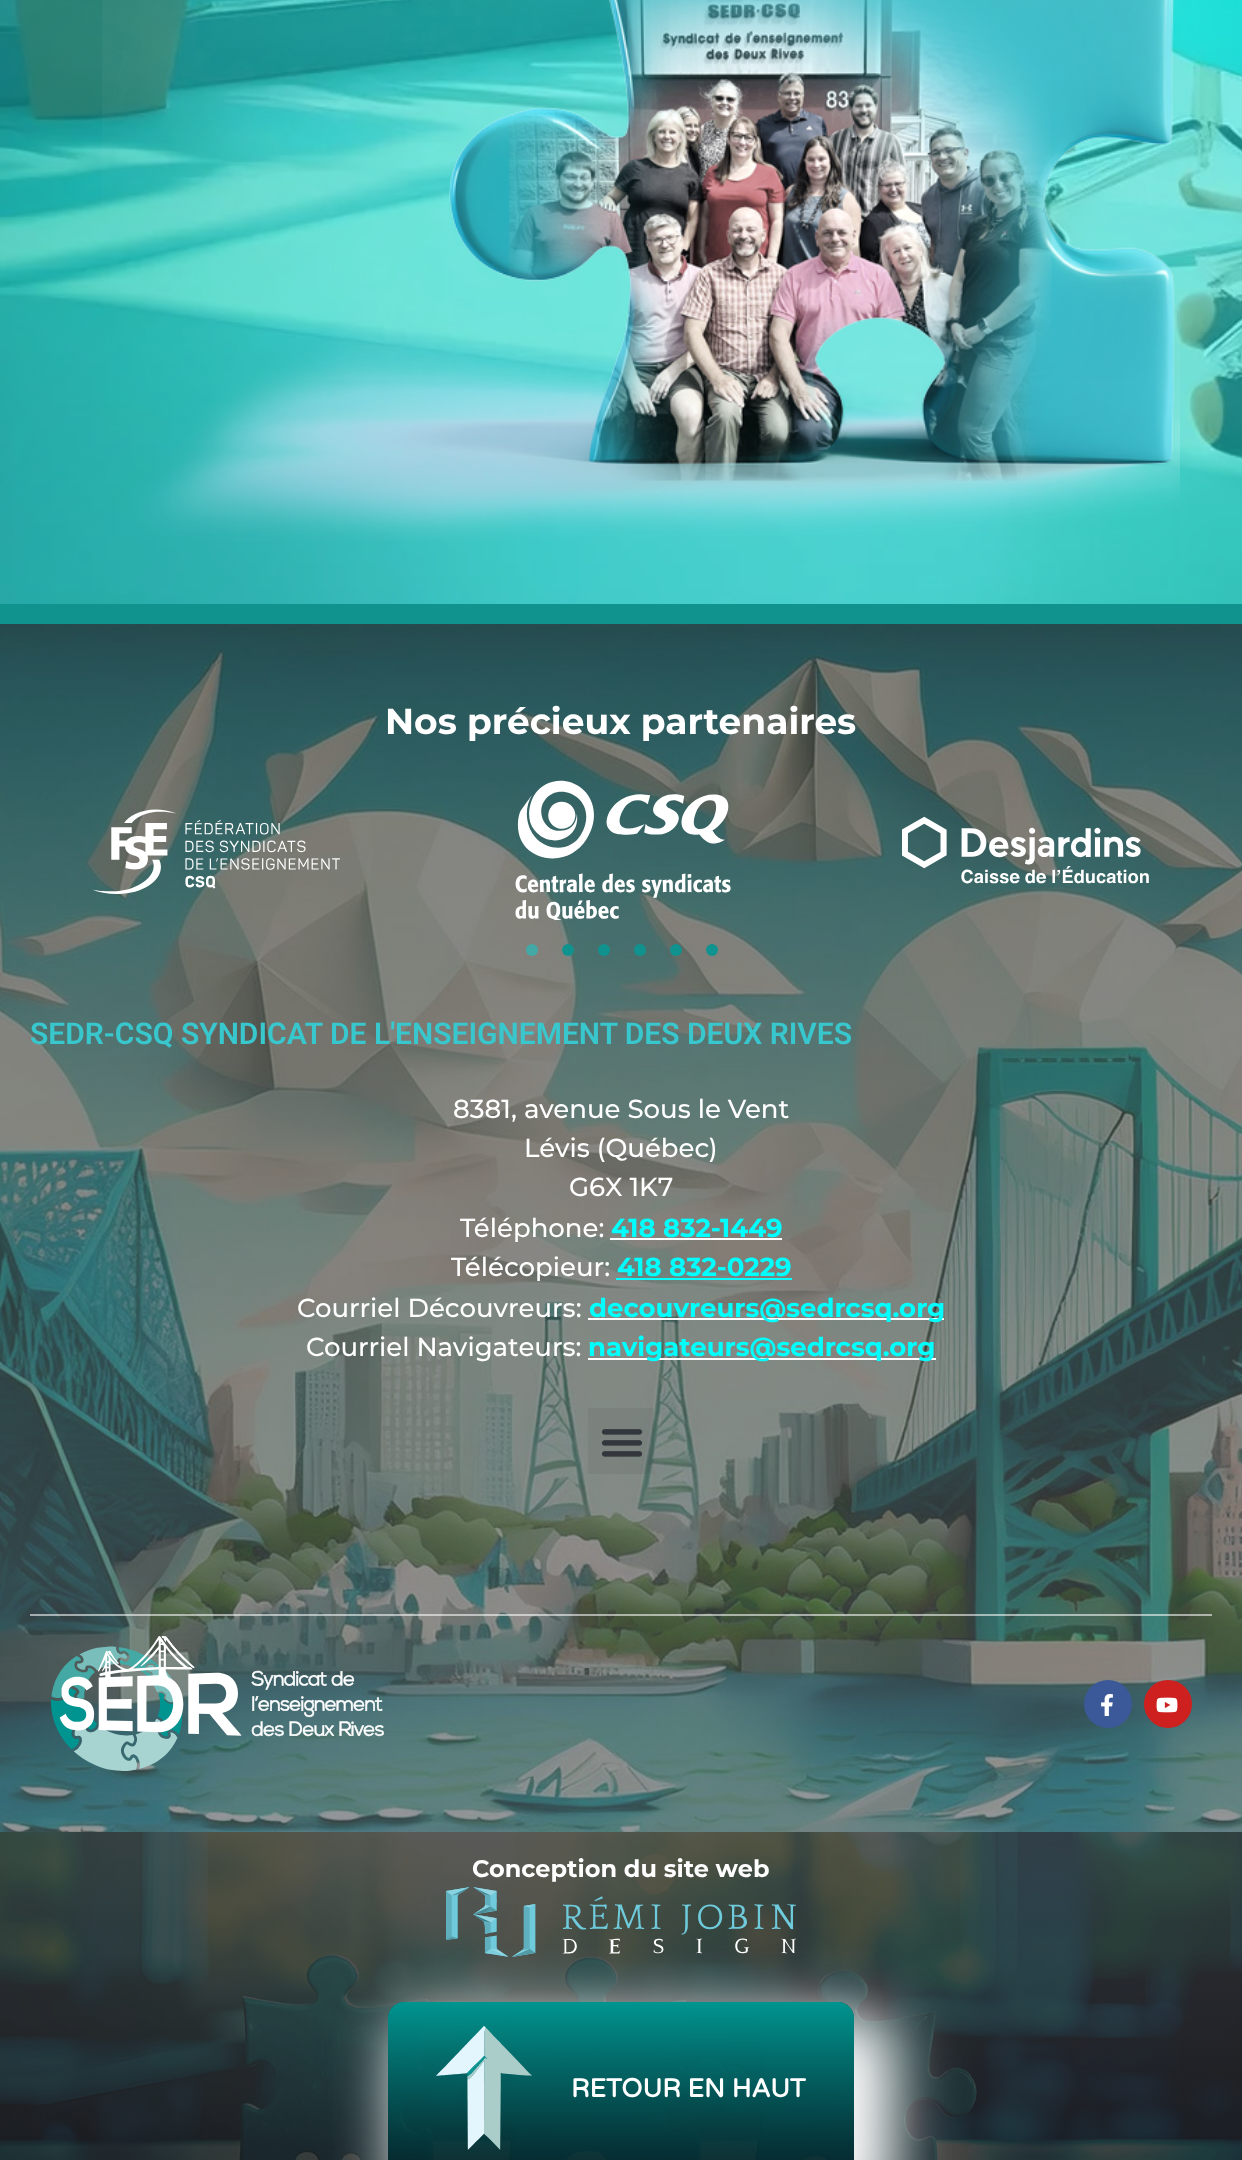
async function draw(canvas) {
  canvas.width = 1242;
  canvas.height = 2160;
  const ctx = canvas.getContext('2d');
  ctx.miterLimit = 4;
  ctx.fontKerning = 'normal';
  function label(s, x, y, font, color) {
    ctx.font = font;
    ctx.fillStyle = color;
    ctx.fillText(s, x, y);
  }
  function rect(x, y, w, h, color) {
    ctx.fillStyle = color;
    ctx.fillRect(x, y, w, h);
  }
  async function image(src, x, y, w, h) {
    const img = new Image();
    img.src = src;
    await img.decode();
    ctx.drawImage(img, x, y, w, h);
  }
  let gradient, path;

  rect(0, 0, 1242, 2160, '#fff');
  gradient = ctx.createLinearGradient(-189, -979, 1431, 379);
  gradient.addColorStop(0, '#009590');
  gradient.addColorStop(0.57, '#27f1eb');
  ctx.fillStyle = gradient;
  ctx.fillRect(0, 0, 1242, 604);
  await image('assets/img1.png', 0, 0, 1242, 604);
  await image('assets/img2.png', 102, 0, 1078, 541);
  gradient = ctx.createLinearGradient(621, 1832, 621, 624);
  gradient.addColorStop(0, '#575860');
  gradient.addColorStop(1, '#3a3a3a');
  ctx.fillStyle = gradient;
  ctx.fillRect(0, 624, 1242, 1208);
  rect(0, 604, 1242, 20, '#10938f');
  await image('assets/img3.png', 0, 624, 1242, 1208);
  label('Nos précieux partenaires', 385, 734, 'bold 36px Montserrat', '#fff');
  await image('assets/img4.png', 92, 809, 248, 85);
  await image('assets/img5.png', 515, 780, 216, 140);
  await image('assets/img6.png', 902, 816, 247, 68);
  ctx.fillStyle = '#42a9a6';
  ctx.beginPath();
  ctx.arc(532, 950, 6, 0, 2 * Math.PI);
  ctx.fill();
  ctx.fillStyle = '#10938f';
  ctx.beginPath();
  ctx.arc(568, 950, 6, 0, 2 * Math.PI);
  ctx.fill();
  ctx.beginPath();
  ctx.arc(604, 950, 6, 0, 2 * Math.PI);
  ctx.fill();
  ctx.beginPath();
  ctx.arc(640, 950, 6, 0, 2 * Math.PI);
  ctx.fill();
  ctx.beginPath();
  ctx.arc(676, 950, 6, 0, 2 * Math.PI);
  ctx.fill();
  ctx.beginPath();
  ctx.arc(712, 950, 6, 0, 2 * Math.PI);
  ctx.fill();
  label('SEDR-CSQ SYNDICAT DE L\'ENSEIGNEMENT DES DEUX RIVES', 30, 1044, '600 30px Roboto', '#39c7ce');
  label('8381, avenue Sous le Vent', 453, 1118, '500 26px Montserrat', '#fff');
  label('Lévis (Québec)', 524, 1157, '500 26px Montserrat', '#fff');
  label('G6X 1K7', 569, 1196, '500 26px Montserrat', '#fff');
  label('Téléphone:', 460, 1237, '500 26px Montserrat', '#fff');
  label('418 832-1449', 611, 1237, 'bold 26px Montserrat', '#0ff');
  rect(610, 1238, 172, 2, '#fff');
  label('Télécopieur:', 451, 1276, '500 26px Montserrat', '#fff');
  label('418 832-0229', 617, 1276, 'bold 26px Montserrat', '#0ff');
  rect(616, 1278, 176, 2, '#0ff');
  label('Courriel Découvreurs:', 297, 1317, '500 26px Montserrat', '#fff');
  rect(588, 1318, 356, 2, '#fff');
  label('decouvreurs@sedrcsq.org', 589, 1317, 'bold 26px Montserrat', '#0ff');
  label('Courriel Navigateurs:', 306, 1356, '500 26px Montserrat', '#fff');
  rect(588, 1358, 348, 2, '#fff');
  label('navigateurs@sedrcsq.org', 588, 1356, 'bold 26px Montserrat', '#0ff');
  rect(588, 1408, 66, 66, '#0000000d');
  await image('assets/img7.png', 601, 1429, 42, 28);
  rect(30, 1614, 1182, 2, '#ffffff8f');
  await image('assets/img8.png', 51, 1636, 333, 135);
  ctx.fillStyle = '#3b5998';
  ctx.beginPath();
  ctx.arc(1108, 1704, 24, 0, 2 * Math.PI);
  ctx.fill();
  await image('assets/img9.png', 1101, 1694, 12, 22);
  ctx.fillStyle = '#cd201f';
  ctx.beginPath();
  ctx.arc(1168, 1704, 24, 0, 2 * Math.PI);
  ctx.fill();
  await image('assets/img10.png', 1156, 1697, 22, 16);
  gradient = ctx.createLinearGradient(621, 2160, 621, 1832);
  gradient.addColorStop(0, '#1f1f1f');
  gradient.addColorStop(1, '#3a3a3a');
  ctx.fillStyle = gradient;
  ctx.fillRect(0, 1832, 1242, 328);
  await image('assets/img11.png', 0, 1832, 1242, 328);
  label('Conception du site web', 472, 1877, 'bold 24px Montserrat', '#fff');
  ctx.save();
  path = new Path2D('M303 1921H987V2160H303ZM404 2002H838C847 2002 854 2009 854 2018V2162C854 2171 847 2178 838 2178H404C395 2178 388 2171 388 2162V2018C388 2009 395 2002 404 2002Z');
  ctx.clip(path, 'evenodd');
  ctx.fillStyle = '#fffffffc';
  ctx.filter = 'blur(30px)';
  ctx.beginPath();
  ctx.roundRect(394, 2012, 502, 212, 34);
  ctx.fill();
  ctx.filter = 'none';
  ctx.restore();
  await image('assets/img12.png', 446, 1887, 350, 70);
  gradient = ctx.createLinearGradient(621, 2002, 621, 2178);
  gradient.addColorStop(0, '#009590');
  gradient.addColorStop(1, '#002027c4');
  ctx.fillStyle = gradient;
  ctx.beginPath();
  ctx.roundRect(388, 2002, 466, 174, 16);
  ctx.fill();
  await image('assets/img13.png', 436, 2026, 96, 124);
  label('RETOUR EN HAUT', 571, 2097, 'bold 26px Varela Round', '#fff');
}

draw(document.querySelector('canvas'));
